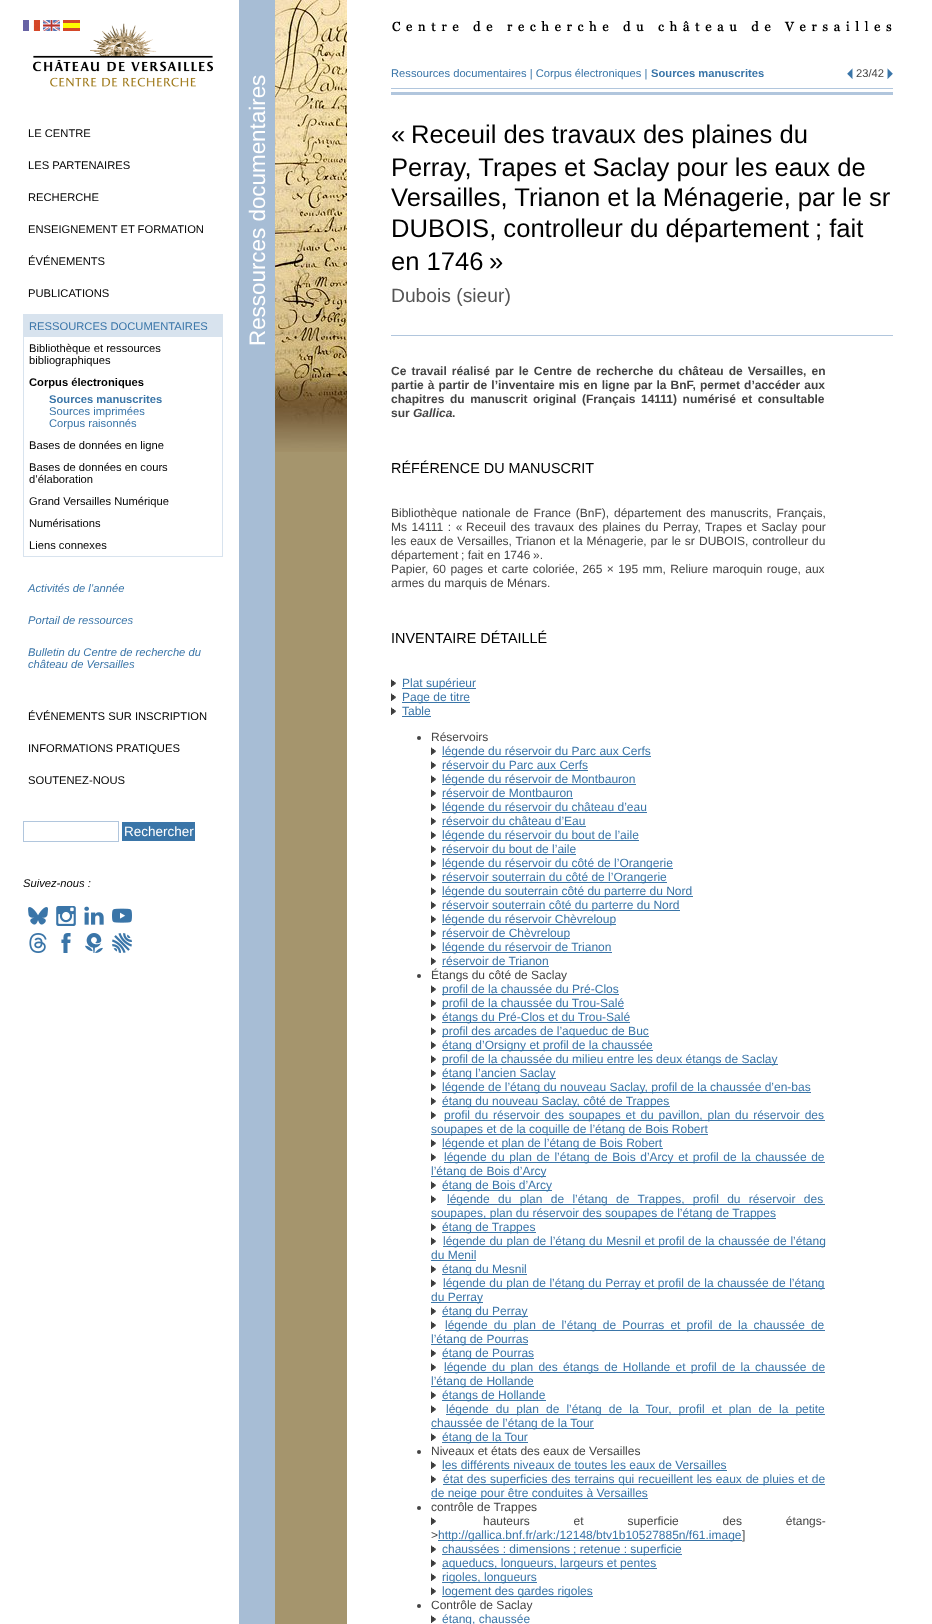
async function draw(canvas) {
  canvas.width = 932;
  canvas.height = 1624;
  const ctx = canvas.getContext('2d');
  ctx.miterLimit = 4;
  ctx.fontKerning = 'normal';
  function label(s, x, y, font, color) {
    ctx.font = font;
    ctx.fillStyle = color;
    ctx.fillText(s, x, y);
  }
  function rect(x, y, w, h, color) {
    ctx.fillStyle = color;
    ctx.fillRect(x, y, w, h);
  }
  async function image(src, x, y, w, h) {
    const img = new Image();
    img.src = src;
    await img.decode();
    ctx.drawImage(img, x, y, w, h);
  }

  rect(0, 0, 932, 1624, '#fff');
  await image('assets/img1.png', 0, 0, 932, 1624);
  await image('assets/img2.png', 225, 0, 122, 1624);
  await image('assets/img6.png', 33, 23, 180, 64);
  await image('assets/img3.png', 23, 20, 17, 11);
  await image('assets/img4.png', 43, 20, 17, 11);
  await image('assets/img5.png', 63, 20, 17, 11);
  label('LE CENTRE', 28, 137, '11.2px Liberation Sans', '#000');
  label('LES PARTENAIRES', 28, 169, '11.2px Liberation Sans', '#000');
  label('RECHERCHE', 28, 201, '11.2px Liberation Sans', '#000');
  label('ENSEIGNEMENT ET FORMATION', 28, 233, '11.2px Liberation Sans', '#000');
  label('ÉVÉNEMENTS', 28, 265, '11.2px Liberation Sans', '#000');
  label('PUBLICATIONS', 28, 297, '11.2px Liberation Sans', '#000');
  ctx.strokeStyle = '#d8e3ee';
  ctx.strokeRect(23.5, 314.5, 199, 242);
  rect(24, 315, 198, 22, '#d8e3ee');
  label('RESSOURCES DOCUMENTAIRES', 29, 330, '11.2px Liberation Sans', '#3a75a8');
  label('Bibliothèque et ressources', 29, 352, '11.2px Liberation Sans', '#000');
  label('bibliographiques', 29, 364, '11.2px Liberation Sans', '#000');
  label('Corpus électroniques', 29, 386, 'bold 11.2px Liberation Sans', '#000');
  label('Sources manuscrites', 49, 403, 'bold 11.2px Liberation Sans', '#3a75a8');
  label('Sources imprimées', 49, 415, '11.2px Liberation Sans', '#3a75a8');
  label('Corpus raisonnés', 49, 427, '11.2px Liberation Sans', '#3a75a8');
  label('Bases de données en ligne', 29, 449, '11.2px Liberation Sans', '#000');
  label('Bases de données en cours', 29, 471, '11.2px Liberation Sans', '#000');
  label('d’élaboration', 29, 483, '11.2px Liberation Sans', '#000');
  label('Grand Versailles Numérique', 29, 505, '11.2px Liberation Sans', '#000');
  label('Numérisations', 29, 527, '11.2px Liberation Sans', '#000');
  label('Liens connexes', 29, 549, '11.2px Liberation Sans', '#000');
  label('Activités de l’année', 28, 592, 'italic 11.2px Liberation Sans', '#3a75a8');
  label('Portail de ressources', 28, 624, 'italic 11.2px Liberation Sans', '#3a75a8');
  label('Bulletin du Centre de recherche du', 28, 656, 'italic 11.2px Liberation Sans', '#3a75a8');
  label('château de Versailles', 28, 668, 'italic 11.2px Liberation Sans', '#3a75a8');
  label('ÉVÉNEMENTS SUR INSCRIPTION', 28, 720, '11.2px Liberation Sans', '#000');
  label('INFORMATIONS PRATIQUES', 28, 752, '11.2px Liberation Sans', '#000');
  label('SOUTENEZ-NOUS', 28, 784, '11.2px Liberation Sans', '#000');
  ctx.strokeStyle = '#b1c6dd';
  ctx.strokeRect(23.5, 821.5, 95, 20);
  rect(122, 822, 73, 19, '#3a75a8');
  label('Rechercher', 124, 836, '13.5px Liberation Sans', '#fff');
  label('Suivez-nous :', 23, 887, 'italic 11.2px Liberation Sans', '#000');
  await image('assets/img7.png', 28, 907, 20, 18);
  await image('assets/img8.png', 56, 906, 20, 20);
  await image('assets/img9.png', 84, 906, 20, 19);
  await image('assets/img10.png', 112, 908, 20, 15);
  await image('assets/img11.png', 29, 933, 18, 20);
  await image('assets/img12.png', 61, 933, 10, 20);
  await image('assets/img13.png', 85, 933, 18, 20);
  await image('assets/img14.png', 112, 933, 20, 20);
  ctx.font = '22.4px Liberation Sans';
  ctx.fillStyle = '#fff';
  ctx.save();
  ctx.translate(265, 346);
  ctx.rotate(-90 * Math.PI / 180);
  ctx.fillText('Ressources documentaires', 0, 0);
  ctx.restore();
  await image('assets/img15.png', 275, 0, 72, 452);
  await image('assets/img16.png', 392, 21, 500, 11);
  rect(391, 88, 502, 1, '#b1c6dd');
  label('Ressources documentaires | Corpus électroniques |', 391, 77, '11.2px Liberation Sans', '#3a75a8');
  label('Sources manuscrites', 651, 77, 'bold 11.2px Liberation Sans', '#3a75a8');
  await image('assets/img17.png', 847, 68, 6, 11);
  label('23/42', 856, 77, '11.2px Liberation Sans', '#444');
  await image('assets/img18.png', 887, 68, 6, 11);
  rect(391, 92, 502, 3, '#b1c6dd');
  rect(391, 335, 502, 1, '#b1c6dd');
  label('«', 391, 143, '25.6px Liberation Sans', '#000');
  label('Receuil des travaux des plaines du', 411, 143, '25.6px Liberation Sans', '#000');
  label('Perray, Trapes et Saclay pour les eaux de', 391, 176, '25.6px Liberation Sans', '#000');
  label('Versailles, Trianon et la Ménagerie, par le sr', 391, 206, '25.6px Liberation Sans', '#000');
  label('DUBOIS, controlleur du département', 391, 237, '25.6px Liberation Sans', '#000');
  label('; fait', 815, 237, '25.6px Liberation Sans', '#000');
  label('en 1746', 391, 270, '25.6px Liberation Sans', '#000');
  label('»', 489, 270, '25.6px Liberation Sans', '#000');
  label('Dubois (sieur)', 391, 302, '19.25px Liberation Sans', '#555');
  ctx.wordSpacing = '1.75px';
  label('Ce travail réalisé par le Centre de recherche du château de Versailles, en', 391, 375, 'bold 12px Liberation Sans', '#444');
  ctx.wordSpacing = '0.75px';
  label('partie à partir de l’inventaire mis en ligne par la BnF, permet d’accéder aux', 391, 389, 'bold 12px Liberation Sans', '#444');
  ctx.wordSpacing = '2.25px';
  label('chapitres du manuscrit original (Français 14111) numérisé et consultable', 391, 403, 'bold 12px Liberation Sans', '#444');
  ctx.wordSpacing = '0px';
  label('sur', 391, 417, 'bold 12px Liberation Sans', '#444');
  label('Gallica', 413, 417, 'italic bold 12px Liberation Sans', '#444');
  label('.', 452, 417, 'bold 12px Liberation Sans', '#444');
  label('RÉFÉRENCE DU MANUSCRIT', 391, 473, '14.4px Liberation Sans', '#000');
  ctx.wordSpacing = '1.5px';
  label('Bibliothèque nationale de France (BnF), département des manuscrits, Français,', 391, 517, '12px Liberation Sans', '#444');
  ctx.wordSpacing = '1.25px';
  label('Ms 14111 : «', 391, 531, '12px Liberation Sans', '#444');
  label('Receuil des travaux des plaines du Perray, Trapes et Saclay pour', 466, 531, '12px Liberation Sans', '#444');
  ctx.wordSpacing = '0.5px';
  label('les eaux de Versailles, Trianon et la Ménagerie, par le sr', 391, 545, '12px Liberation Sans', '#444');
  ctx.wordSpacing = '0px';
  label('DUBOIS', 699, 545, '12px Liberation Sans', '#444');
  ctx.wordSpacing = '0.5px';
  label(', controlleur du', 745, 545, '12px Liberation Sans', '#444');
  ctx.wordSpacing = '0px';
  label('département', 391, 559, '12px Liberation Sans', '#444');
  label('; fait en 1746', 461, 559, '12px Liberation Sans', '#444');
  label('».', 533, 559, '12px Liberation Sans', '#444');
  ctx.wordSpacing = '1px';
  label('Papier, 60 pages et carte coloriée, 265 × 195 mm, Reliure maroquin rouge, aux', 391, 573, '12px Liberation Sans', '#444');
  ctx.wordSpacing = '0px';
  label('armes du marquis de Ménars.', 391, 587, '12px Liberation Sans', '#444');
  label('INVENTAIRE DÉTAILLÉ', 391, 643, '14.4px Liberation Sans', '#000');
  await image('assets/img19.png', 391, 679, 5, 8);
  rect(402, 688, 74, 1, '#3a75a8');
  label('Plat supérieur', 402, 687, '12px Liberation Sans', '#3a75a8');
  await image('assets/img19.png', 391, 693, 5, 8);
  rect(402, 702, 68, 1, '#3a75a8');
  label('Page de titre', 402, 701, '12px Liberation Sans', '#3a75a8');
  await image('assets/img19.png', 391, 707, 5, 8);
  label('Table', 402, 715, '12px Liberation Sans', '#3a75a8');
  rect(402, 716, 29, 1, '#3a75a8');
  ctx.fillStyle = '#444';
  ctx.beginPath();
  ctx.arc(419, 738, 2, 0, 2 * Math.PI);
  ctx.fill();
  label('Réservoirs', 431, 741, '12px Liberation Sans', '#444');
  await image('assets/img19.png', 431, 747, 5, 8);
  rect(442, 756, 209, 1, '#3a75a8');
  label('légende du réservoir du Parc aux Cerfs', 442, 755, '12px Liberation Sans', '#3a75a8');
  await image('assets/img19.png', 431, 761, 5, 8);
  label('réservoir du Parc aux Cerfs', 442, 769, '12px Liberation Sans', '#3a75a8');
  rect(442, 770, 146, 1, '#3a75a8');
  await image('assets/img19.png', 431, 775, 5, 8);
  rect(442, 784, 194, 1, '#3a75a8');
  label('légende du réservoir de Montbauron', 442, 783, '12px Liberation Sans', '#3a75a8');
  await image('assets/img19.png', 431, 789, 5, 8);
  label('réservoir de Montbauron', 442, 797, '12px Liberation Sans', '#3a75a8');
  rect(442, 798, 131, 1, '#3a75a8');
  await image('assets/img19.png', 431, 803, 5, 8);
  rect(442, 812, 205, 1, '#3a75a8');
  label('légende du réservoir du château d’eau', 442, 811, '12px Liberation Sans', '#3a75a8');
  await image('assets/img19.png', 431, 817, 5, 8);
  label('réservoir du château d’Eau', 442, 825, '12px Liberation Sans', '#3a75a8');
  rect(442, 826, 144, 1, '#3a75a8');
  await image('assets/img19.png', 431, 831, 5, 8);
  rect(442, 840, 197, 1, '#3a75a8');
  label('légende du réservoir du bout de l’aile', 442, 839, '12px Liberation Sans', '#3a75a8');
  await image('assets/img19.png', 431, 845, 5, 8);
  label('réservoir du bout de l’aile', 442, 853, '12px Liberation Sans', '#3a75a8');
  rect(442, 854, 134, 1, '#3a75a8');
  await image('assets/img19.png', 431, 859, 5, 8);
  rect(442, 868, 231, 1, '#3a75a8');
  label('légende du réservoir du côté de l’Orangerie', 442, 867, '12px Liberation Sans', '#3a75a8');
  await image('assets/img19.png', 431, 873, 5, 8);
  rect(442, 882, 225, 1, '#3a75a8');
  label('réservoir souterrain du côté de l’Orangerie', 442, 881, '12px Liberation Sans', '#3a75a8');
  await image('assets/img19.png', 431, 887, 5, 8);
  rect(442, 896, 251, 1, '#3a75a8');
  label('légende du souterrain côté du parterre du Nord', 442, 895, '12px Liberation Sans', '#3a75a8');
  await image('assets/img19.png', 431, 901, 5, 8);
  rect(442, 910, 238, 1, '#3a75a8');
  label('réservoir souterrain côté du parterre du Nord', 442, 909, '12px Liberation Sans', '#3a75a8');
  await image('assets/img19.png', 431, 915, 5, 8);
  rect(442, 924, 174, 1, '#3a75a8');
  label('légende du réservoir Chèvreloup', 442, 923, '12px Liberation Sans', '#3a75a8');
  await image('assets/img19.png', 431, 929, 5, 8);
  rect(442, 938, 128, 1, '#3a75a8');
  label('réservoir de Chèvreloup', 442, 937, '12px Liberation Sans', '#3a75a8');
  await image('assets/img19.png', 431, 943, 5, 8);
  rect(442, 952, 170, 1, '#3a75a8');
  label('légende du réservoir de Trianon', 442, 951, '12px Liberation Sans', '#3a75a8');
  await image('assets/img19.png', 431, 957, 5, 8);
  label('réservoir de Trianon', 442, 965, '12px Liberation Sans', '#3a75a8');
  rect(442, 966, 107, 1, '#3a75a8');
  ctx.fillStyle = '#444';
  ctx.beginPath();
  ctx.arc(419, 976, 2, 0, 2 * Math.PI);
  ctx.fill();
  label('Étangs du côté de Saclay', 431, 979, '12px Liberation Sans', '#444');
  await image('assets/img19.png', 431, 985, 5, 8);
  rect(442, 994, 177, 1, '#3a75a8');
  label('profil de la chaussée du Pré-Clos', 442, 993, '12px Liberation Sans', '#3a75a8');
  await image('assets/img19.png', 431, 999, 5, 8);
  rect(442, 1008, 182, 1, '#3a75a8');
  label('profil de la chaussée du Trou-Salé', 442, 1007, '12px Liberation Sans', '#3a75a8');
  await image('assets/img19.png', 431, 1013, 5, 8);
  rect(442, 1022, 188, 1, '#3a75a8');
  label('étangs du Pré-Clos et du Trou-Salé', 442, 1021, '12px Liberation Sans', '#3a75a8');
  await image('assets/img19.png', 431, 1027, 5, 8);
  rect(442, 1036, 207, 1, '#3a75a8');
  label('profil des arcades de l’aqueduc de Buc', 442, 1035, '12px Liberation Sans', '#3a75a8');
  await image('assets/img19.png', 431, 1041, 5, 8);
  rect(442, 1050, 211, 1, '#3a75a8');
  label('étang d’Orsigny et profil de la chaussée', 442, 1049, '12px Liberation Sans', '#3a75a8');
  await image('assets/img19.png', 431, 1055, 5, 8);
  rect(442, 1064, 336, 1, '#3a75a8');
  label('profil de la chaussée du milieu entre les deux étangs de Saclay', 442, 1063, '12px Liberation Sans', '#3a75a8');
  await image('assets/img19.png', 431, 1069, 5, 8);
  rect(442, 1078, 114, 1, '#3a75a8');
  label('étang l’ancien Saclay', 442, 1077, '12px Liberation Sans', '#3a75a8');
  await image('assets/img19.png', 431, 1083, 5, 8);
  rect(442, 1092, 369, 1, '#3a75a8');
  label('légende de l’étang du nouveau Saclay, profil de la chaussée d’en-bas', 442, 1091, '12px Liberation Sans', '#3a75a8');
  await image('assets/img19.png', 431, 1097, 5, 8);
  rect(442, 1106, 228, 1, '#3a75a8');
  label('étang du nouveau Saclay, côté de Trappes', 442, 1105, '12px Liberation Sans', '#3a75a8');
  await image('assets/img19.png', 431, 1111, 5, 8);
  rect(444, 1120, 381, 1, '#3a75a8');
  ctx.wordSpacing = '1.5px';
  label('profil du réservoir des soupapes et du pavillon, plan du réservoir des', 444, 1119, '12px Liberation Sans', '#3a75a8');
  rect(431, 1134, 277, 1, '#3a75a8');
  ctx.wordSpacing = '0px';
  label('soupapes et de la coquille de l’étang de Bois Robert', 431, 1133, '12px Liberation Sans', '#3a75a8');
  await image('assets/img19.png', 431, 1139, 5, 8);
  rect(442, 1148, 221, 1, '#3a75a8');
  label('légende et plan de l’étang de Bois Robert', 442, 1147, '12px Liberation Sans', '#3a75a8');
  await image('assets/img19.png', 431, 1153, 5, 8);
  rect(444, 1162, 381, 1, '#3a75a8');
  ctx.wordSpacing = '1.25px';
  label('légende du plan de l’étang de Bois d’Arcy et profil de la chaussée de', 444, 1161, '12px Liberation Sans', '#3a75a8');
  rect(431, 1176, 115, 1, '#3a75a8');
  ctx.wordSpacing = '0px';
  label('l’étang de Bois d’Arcy', 431, 1175, '12px Liberation Sans', '#3a75a8');
  await image('assets/img19.png', 431, 1181, 5, 8);
  rect(442, 1190, 110, 1, '#3a75a8');
  label('étang de Bois d’Arcy', 442, 1189, '12px Liberation Sans', '#3a75a8');
  await image('assets/img19.png', 431, 1195, 5, 8);
  rect(447, 1204, 378, 1, '#3a75a8');
  ctx.wordSpacing = '5px';
  label('légende du plan de l’étang de Trappes, profil du réservoir des', 447, 1203, '12px Liberation Sans', '#3a75a8');
  rect(431, 1218, 345, 1, '#3a75a8');
  ctx.wordSpacing = '0px';
  label('soupapes, plan du réservoir des soupapes de l’étang de Trappes', 431, 1217, '12px Liberation Sans', '#3a75a8');
  await image('assets/img19.png', 431, 1223, 5, 8);
  rect(442, 1232, 94, 1, '#3a75a8');
  label('étang de Trappes', 442, 1231, '12px Liberation Sans', '#3a75a8');
  await image('assets/img19.png', 431, 1237, 5, 8);
  rect(443, 1246, 382, 1, '#3a75a8');
  ctx.wordSpacing = '0.4px';
  label('légende du plan de l’étang du Mesnil et profil de la chaussée de l’étang', 443, 1245, '12px Liberation Sans', '#3a75a8');
  ctx.wordSpacing = '0px';
  label('du Menil', 431, 1259, '12px Liberation Sans', '#3a75a8');
  rect(431, 1260, 45, 1, '#3a75a8');
  await image('assets/img19.png', 431, 1265, 5, 8);
  rect(442, 1274, 85, 1, '#3a75a8');
  label('étang du Mesnil', 442, 1273, '12px Liberation Sans', '#3a75a8');
  await image('assets/img19.png', 431, 1279, 5, 8);
  rect(443, 1288, 382, 1, '#3a75a8');
  ctx.wordSpacing = '0.25px';
  label('légende du plan de l’étang du Perray et profil de la chaussée de l’étang', 443, 1287, '12px Liberation Sans', '#3a75a8');
  rect(431, 1302, 52, 1, '#3a75a8');
  ctx.wordSpacing = '0px';
  label('du Perray', 431, 1301, '12px Liberation Sans', '#3a75a8');
  await image('assets/img19.png', 431, 1307, 5, 8);
  rect(442, 1316, 86, 1, '#3a75a8');
  label('étang du Perray', 442, 1315, '12px Liberation Sans', '#3a75a8');
  await image('assets/img19.png', 431, 1321, 5, 8);
  rect(445, 1330, 380, 1, '#3a75a8');
  ctx.wordSpacing = '2.75px';
  label('légende du plan de l’étang de Pourras et profil de la chaussée de', 445, 1329, '12px Liberation Sans', '#3a75a8');
  rect(431, 1344, 97, 1, '#3a75a8');
  ctx.wordSpacing = '0px';
  label('l’étang de Pourras', 431, 1343, '12px Liberation Sans', '#3a75a8');
  await image('assets/img19.png', 431, 1349, 5, 8);
  rect(442, 1358, 92, 1, '#3a75a8');
  label('étang de Pourras', 442, 1357, '12px Liberation Sans', '#3a75a8');
  await image('assets/img19.png', 431, 1363, 5, 8);
  rect(444, 1372, 381, 1, '#3a75a8');
  ctx.wordSpacing = '1.9px';
  label('légende du plan des étangs de Hollande et profil de la chaussée de', 444, 1371, '12px Liberation Sans', '#3a75a8');
  rect(431, 1386, 103, 1, '#3a75a8');
  ctx.wordSpacing = '0px';
  label('l’étang de Hollande', 431, 1385, '12px Liberation Sans', '#3a75a8');
  await image('assets/img19.png', 431, 1391, 5, 8);
  rect(442, 1400, 104, 1, '#3a75a8');
  label('étangs de Hollande', 442, 1399, '12px Liberation Sans', '#3a75a8');
  await image('assets/img19.png', 431, 1405, 5, 8);
  rect(446, 1414, 379, 1, '#3a75a8');
  ctx.wordSpacing = '3.75px';
  label('légende du plan de l’étang de la Tour, profil et plan de la petite', 446, 1413, '12px Liberation Sans', '#3a75a8');
  rect(431, 1428, 163, 1, '#3a75a8');
  ctx.wordSpacing = '0px';
  label('chaussée de l’étang de la Tour', 431, 1427, '12px Liberation Sans', '#3a75a8');
  await image('assets/img19.png', 431, 1433, 5, 8);
  rect(442, 1442, 86, 1, '#3a75a8');
  label('étang de la Tour', 442, 1441, '12px Liberation Sans', '#3a75a8');
  ctx.fillStyle = '#444';
  ctx.beginPath();
  ctx.arc(419, 1452, 2, 0, 2 * Math.PI);
  ctx.fill();
  label('Niveaux et états des eaux de Versailles', 431, 1455, '12px Liberation Sans', '#444');
  await image('assets/img19.png', 431, 1461, 5, 8);
  label('les différents niveaux de toutes les eaux de Versailles', 442, 1469, '12px Liberation Sans', '#3a75a8');
  rect(442, 1470, 285, 1, '#3a75a8');
  await image('assets/img19.png', 431, 1475, 5, 8);
  rect(443, 1484, 382, 1, '#3a75a8');
  ctx.wordSpacing = '0.5px';
  label('état des superficies des terrains qui recueillent les eaux de pluies et de', 443, 1483, '12px Liberation Sans', '#3a75a8');
  rect(431, 1498, 217, 1, '#3a75a8');
  ctx.wordSpacing = '0px';
  label('de neige pour être conduites à Versailles', 431, 1497, '12px Liberation Sans', '#3a75a8');
  ctx.fillStyle = '#444';
  ctx.beginPath();
  ctx.arc(419, 1508, 2, 0, 2 * Math.PI);
  ctx.fill();
  label('contrôle de Trappes', 431, 1511, '12px Liberation Sans', '#444');
  await image('assets/img19.png', 431, 1517, 5, 8);
  ctx.wordSpacing = '40.5px';
  label('hauteurs et superficie des étangs-', 483, 1525, '12px Liberation Sans', '#444');
  ctx.wordSpacing = '0px';
  label('>', 431, 1539, '12px Liberation Sans', '#444');
  rect(438, 1540, 304, 1, '#3a75a8');
  label('http://gallica.bnf.fr/ark:/12148/btv1b10527885n/f61.image', 438, 1539, '12px Liberation Sans', '#3a75a8');
  label(']', 742, 1539, '12px Liberation Sans', '#444');
  await image('assets/img19.png', 431, 1545, 5, 8);
  label('chaussées : dimensions', 442, 1553, '12px Liberation Sans', '#3a75a8');
  rect(442, 1554, 240, 1, '#3a75a8');
  label('; retenue : superficie', 573, 1553, '12px Liberation Sans', '#3a75a8');
  await image('assets/img19.png', 431, 1559, 5, 8);
  rect(442, 1568, 215, 1, '#3a75a8');
  label('aqueducs, longueurs, largeurs et pentes', 442, 1567, '12px Liberation Sans', '#3a75a8');
  await image('assets/img19.png', 431, 1573, 5, 8);
  rect(442, 1582, 95, 1, '#3a75a8');
  label('rigoles, longueurs', 442, 1581, '12px Liberation Sans', '#3a75a8');
  await image('assets/img19.png', 431, 1587, 5, 8);
  rect(442, 1596, 151, 1, '#3a75a8');
  label('logement des gardes rigoles', 442, 1595, '12px Liberation Sans', '#3a75a8');
  ctx.fillStyle = '#444';
  ctx.beginPath();
  ctx.arc(419, 1606, 2, 0, 2 * Math.PI);
  ctx.fill();
  label('Contrôle de Saclay', 431, 1609, '12px Liberation Sans', '#444');
  await image('assets/img19.png', 431, 1615, 5, 8);
  label('étang, chaussée', 442, 1623, '12px Liberation Sans', '#3a75a8');
}

draw(document.querySelector('canvas'));
